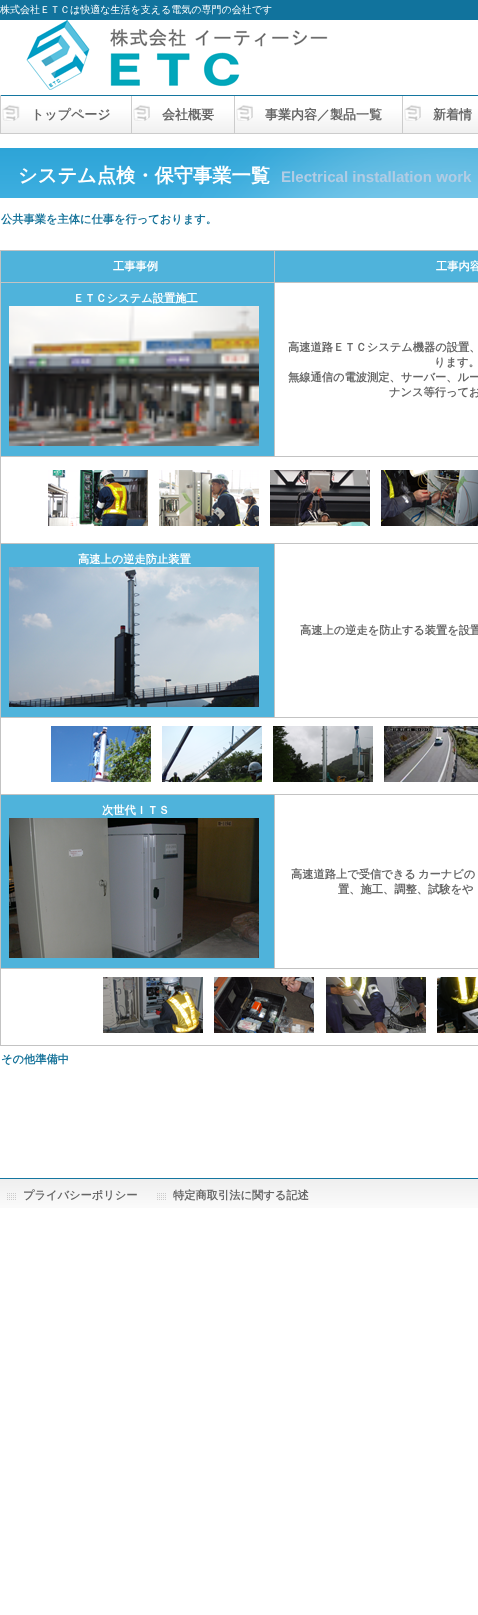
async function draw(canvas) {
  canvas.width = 478;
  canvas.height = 1615;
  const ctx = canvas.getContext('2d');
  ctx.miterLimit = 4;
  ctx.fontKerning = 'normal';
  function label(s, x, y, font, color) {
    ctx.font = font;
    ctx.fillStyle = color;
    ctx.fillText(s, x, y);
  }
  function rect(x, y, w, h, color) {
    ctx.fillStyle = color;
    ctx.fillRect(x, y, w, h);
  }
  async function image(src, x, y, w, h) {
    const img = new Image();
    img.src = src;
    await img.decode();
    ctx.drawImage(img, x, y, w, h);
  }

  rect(0, 0, 478, 1615, '#fff');
  await image('assets/img1.png', 0, 0, 478, 134);
  await image('assets/img2.png', 0, 1178, 478, 30);
  label('株式会社ＥＴＣは快適な生活を支える電気の専門の会社です', 0, 13, '500 10px WenQuanYi Zen Hei', '#fff');
  await image('assets/img3.png', 26, 20, 302, 70);
  rect(0, 95, 1, 38, '#ccc');
  rect(131, 96, 1, 37, '#ccc');
  await image('assets/img4.png', 2, 105, 18, 16);
  label('トップページ', 31, 119, 'bold 13px WenQuanYi Zen Hei', '#666');
  rect(234, 96, 1, 37, '#ccc');
  await image('assets/img5.png', 133, 105, 17, 16);
  label('会社概要', 162, 119, 'bold 13px WenQuanYi Zen Hei', '#666');
  rect(402, 96, 1, 37, '#ccc');
  await image('assets/img5.png', 236, 105, 17, 16);
  label('事業内容／製品一覧', 265, 119, 'bold 13px WenQuanYi Zen Hei', '#666');
  await image('assets/img6.png', 404, 105, 17, 16);
  label('新着情', 433, 119, 'bold 13px WenQuanYi Zen Hei', '#666');
  await image('assets/img7.png', 0, 148, 478, 50);
  label('システム点検・保守事業一覧', 18, 182, 'bold 19.25px WenQuanYi Zen Hei', '#fff');
  label('Electrical installation work', 281, 182, 'bold 15.1px Liberation Sans', '#b1cce4');
  label('公共事業を主体に仕事を行っております。', 1, 223, 'bold 11.25px WenQuanYi Zen Hei', '#157299');
  rect(1, 251, 273, 31, '#4fb3db');
  rect(274, 250, 204, 1, '#c3c3c3');
  rect(274, 282, 204, 1, '#c3c3c3');
  rect(0, 456, 478, 1, '#c3c3c3');
  rect(274, 282, 1, 175, '#c3c3c3');
  rect(0, 282, 275, 1, '#c3c3c3');
  rect(274, 250, 1, 33, '#c3c3c3');
  rect(0, 250, 275, 1, '#c3c3c3');
  rect(274, 543, 204, 1, '#c3c3c3');
  rect(0, 717, 478, 1, '#c3c3c3');
  rect(274, 543, 1, 175, '#c3c3c3');
  rect(0, 543, 275, 1, '#c3c3c3');
  rect(274, 794, 204, 1, '#c3c3c3');
  rect(0, 968, 478, 1, '#c3c3c3');
  rect(274, 794, 1, 175, '#c3c3c3');
  rect(0, 794, 275, 1, '#c3c3c3');
  rect(0, 1045, 478, 1, '#c3c3c3');
  rect(0, 968, 1, 78, '#c3c3c3');
  rect(0, 794, 1, 175, '#c3c3c3');
  rect(0, 717, 1, 78, '#c3c3c3');
  rect(0, 543, 1, 175, '#c3c3c3');
  rect(0, 456, 1, 88, '#c3c3c3');
  rect(0, 282, 1, 175, '#c3c3c3');
  rect(0, 250, 1, 33, '#c3c3c3');
  label('工事事例', 113, 270, 'bold 11.25px WenQuanYi Zen Hei', '#fff');
  rect(275, 251, 203, 31, '#4fb3db');
  label('工事内容', 436, 270, 'bold 11.25px WenQuanYi Zen Hei', '#fff');
  rect(1, 283, 273, 173, '#4fb3db');
  label('ＥＴＣシステム設置施工', 73, 302, 'bold 11.25px WenQuanYi Zen Hei', '#fff');
  await image('assets/img8.png', 9, 306, 250, 140);
  label('高速道路ＥＴＣシステム機器の設置、', 288, 351, 'bold 11.25px WenQuanYi Zen Hei', '#666');
  label('ります。', 434, 366, 'bold 11.25px WenQuanYi Zen Hei', '#666');
  label('無線通信の電波測定、サーバー、ルー', 288, 381, 'bold 11.25px WenQuanYi Zen Hei', '#666');
  label('ナンス等行ってお', 389, 396, 'bold 11.25px WenQuanYi Zen Hei', '#666');
  await image('assets/img9.png', 48, 470, 100, 56);
  await image('assets/img10.png', 159, 470, 100, 56);
  await image('assets/img11.png', 270, 470, 100, 56);
  await image('assets/img12.png', 381, 470, 97, 56);
  rect(1, 544, 273, 173, '#4fb3db');
  label('高速上の逆走防止装置', 78, 563, 'bold 11.25px WenQuanYi Zen Hei', '#fff');
  await image('assets/img13.png', 9, 567, 250, 140);
  label('高速上の逆走を防止する装置を設置', 300, 634, 'bold 11.25px WenQuanYi Zen Hei', '#666');
  await image('assets/img14.png', 51, 726, 100, 56);
  await image('assets/img15.png', 162, 726, 100, 56);
  await image('assets/img16.png', 273, 726, 100, 56);
  await image('assets/img17.png', 384, 726, 94, 56);
  rect(1, 795, 273, 173, '#4fb3db');
  label('次世代ＩＴＳ', 102, 814, 'bold 11.25px WenQuanYi Zen Hei', '#fff');
  await image('assets/img18.png', 9, 818, 250, 140);
  label('高速道路上で受信できる', 291, 878, 'bold 11.25px WenQuanYi Zen Hei', '#666');
  label('カーナビの', 418, 878, 'bold 11.25px WenQuanYi Zen Hei', '#666');
  label('置、施工、調整、試験をや', 338, 893, 'bold 11.25px WenQuanYi Zen Hei', '#666');
  await image('assets/img19.png', 103, 977, 100, 56);
  await image('assets/img20.png', 214, 977, 100, 56);
  await image('assets/img21.png', 326, 977, 100, 56);
  await image('assets/img22.png', 437, 977, 41, 56);
  label('その他準備中', 1, 1063, 'bold 11.25px WenQuanYi Zen Hei', '#157299');
  await image('assets/img23.png', 7, 1193, 9, 7);
  label('プライバシーポリシー', 23, 1199, 'bold 11.25px WenQuanYi Zen Hei', '#666');
  await image('assets/img23.png', 157, 1193, 9, 7);
  label('特定商取引法に関する記述', 173, 1199, 'bold 11.25px WenQuanYi Zen Hei', '#666');
}

draw(document.querySelector('canvas'));
